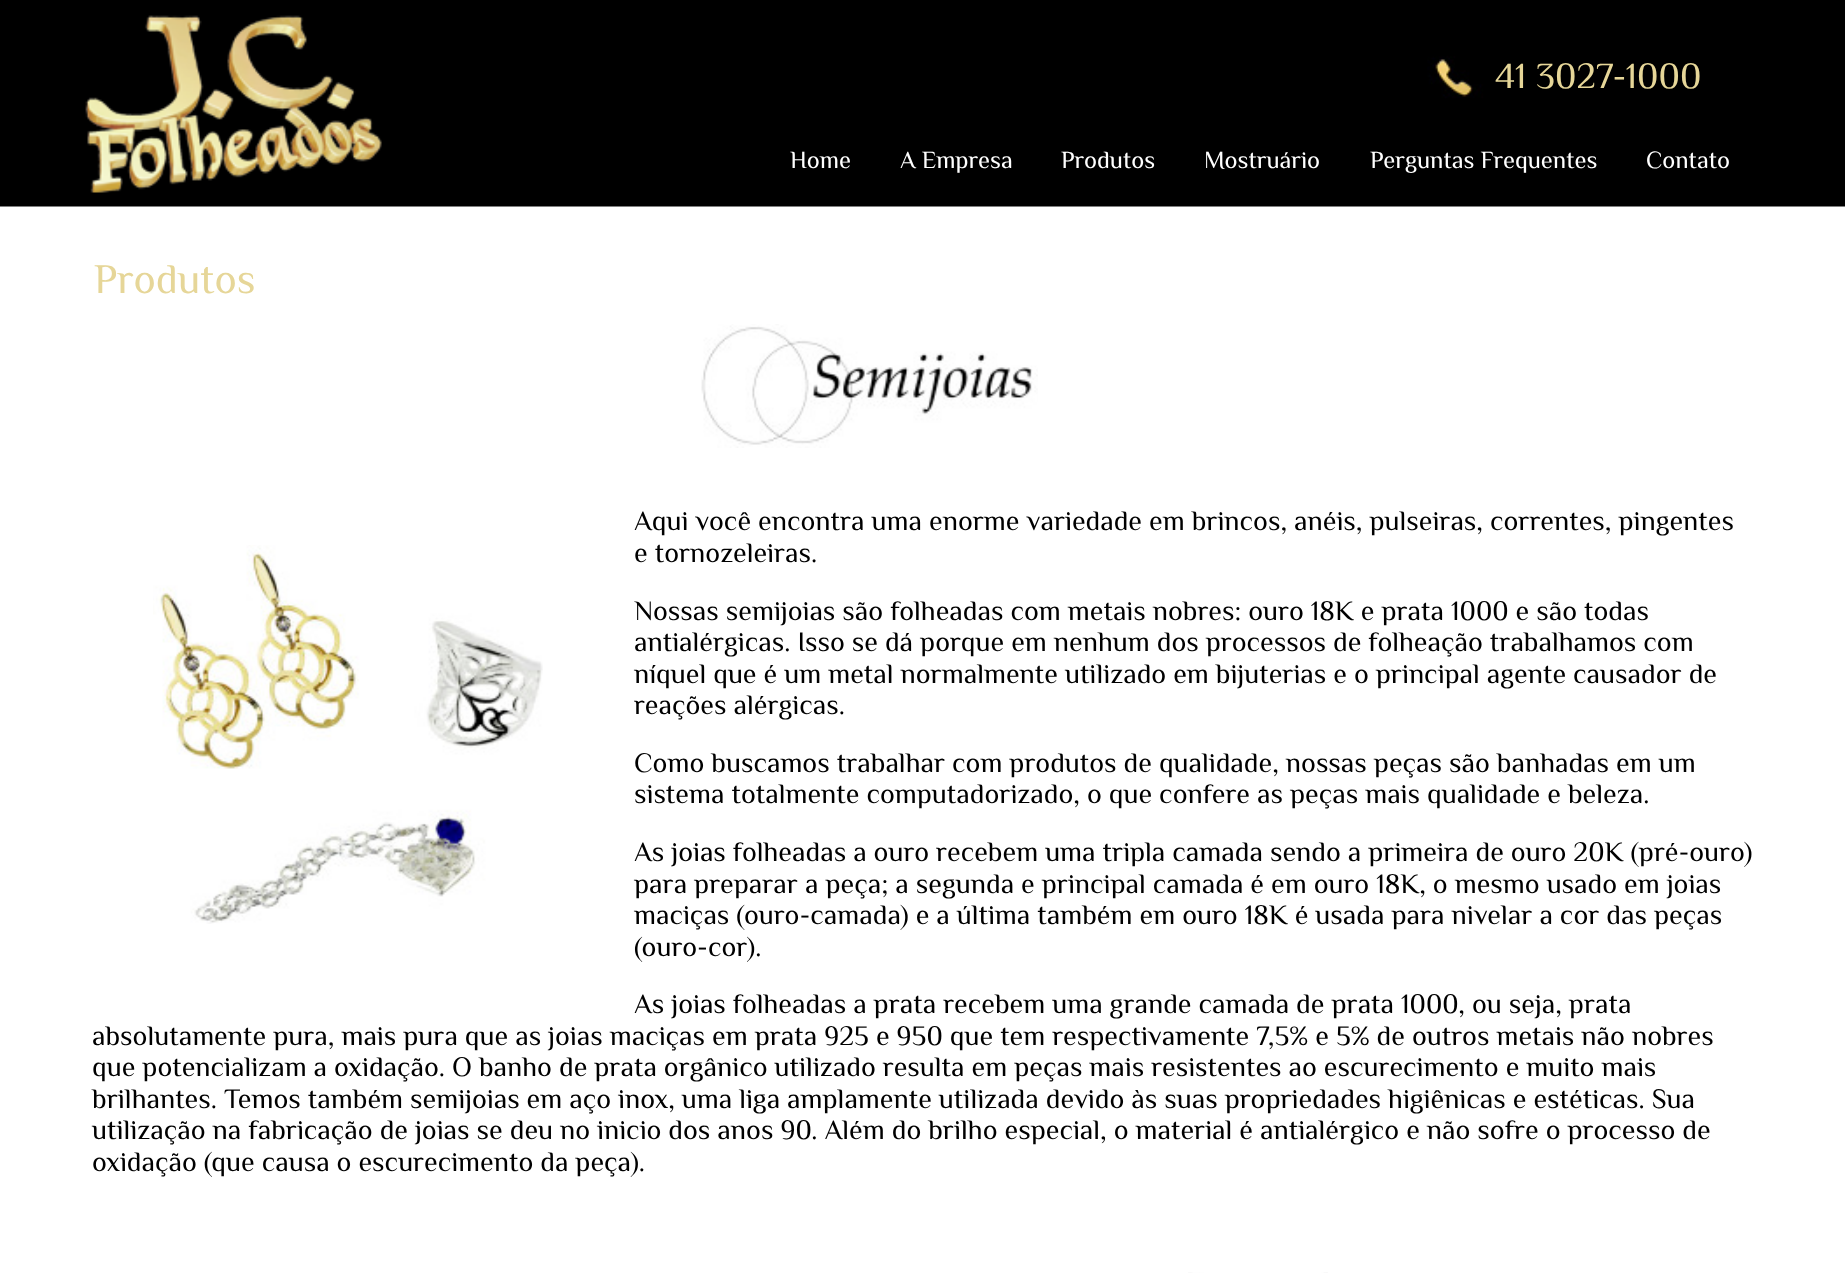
async function draw(canvas) {
  canvas.width = 1845;
  canvas.height = 1273;
  const ctx = canvas.getContext('2d');
  ctx.miterLimit = 4;
  ctx.fontKerning = 'normal';
  function label(s, x, y, font, color) {
    ctx.font = font;
    ctx.fillStyle = color;
    ctx.fillText(s, x, y);
  }
  function rect(x, y, w, h, color) {
    ctx.fillStyle = color;
    ctx.fillRect(x, y, w, h);
  }
  async function image(src, x, y, w, h) {
    const img = new Image();
    img.src = src;
    await img.decode();
    ctx.drawImage(img, x, y, w, h);
  }

  rect(0, 0, 1845, 1273, '#fff');
  await image('assets/img1.png', 0, 0, 1845, 207);
  await image('assets/img2.png', 85, 15, 297, 178);
  label('41 3027-1000', 1495, 88, '36.75px Philosopher', '#e6d698');
  label('Home', 790, 168, '24.5px Philosopher', '#fff');
  label('A Empresa', 900, 168, '24.5px Philosopher', '#fff');
  label('Produtos', 1061, 168, '24.5px Philosopher', '#fff');
  label('Mostruário', 1204, 168, '24.5px Philosopher', '#fff');
  label('Perguntas Frequentes', 1370, 168, '24.5px Philosopher', '#fff');
  label('Contato', 1646, 168, '24.5px Philosopher', '#fff');
  label('Produtos', 94, 293, '42px Philosopher', '#e6d698');
  await image('assets/img3.png', 701, 324, 337, 124);
  label('Aqui você encontra uma enorme variedade em brincos, anéis, pulseiras, correntes, pingentes', 634, 530, '28px Philosopher', '#000');
  await image('assets/img4.png', 153, 545, 390, 379);
  label('e tornozeleiras.', 634, 562, '28px Philosopher', '#000');
  label('Nossas semijoias são folheadas com metais nobres: ouro 18K e prata 1000 e são todas', 634, 620, '28px Philosopher', '#000');
  label('antialérgicas. Isso se dá porque em nenhum dos processos de folheação trabalhamos com', 634, 651, '28px Philosopher', '#000');
  label('níquel que é um metal normalmente utilizado em bijuterias e o principal agente causador de', 634, 683, '28px Philosopher', '#000');
  label('reações alérgicas.', 634, 714, '28px Philosopher', '#000');
  label('Como buscamos trabalhar com produtos de qualidade, nossas peças são banhadas em um', 634, 772, '28px Philosopher', '#000');
  label('sistema totalmente computadorizado, o que confere as peças mais qualidade e beleza.', 634, 803, '28px Philosopher', '#000');
  label('As joias folheadas a ouro recebem uma tripla camada sendo a primeira de ouro 20K (pré-ouro)', 634, 861, '28px Philosopher', '#000');
  label('para preparar a peça; a segunda e principal camada é em ouro 18K, o mesmo usado em joias', 634, 893, '28px Philosopher', '#000');
  label('maciças (ouro-camada) e a última também em ouro 18K é usada para nivelar a cor das peças', 634, 924, '28px Philosopher', '#000');
  label('(ouro-cor).', 634, 956, '28px Philosopher', '#000');
  label('As joias folheadas a prata recebem uma grande camada de prata 1000, ou seja, prata', 634, 1013, '28px Philosopher', '#000');
  label('absolutamente pura, mais pura que as joias maciças em prata 925 e 950 que tem respectivamente 7,5% e 5% de outros metais não nobres', 92, 1045, '28px Philosopher', '#000');
  label('que potencializam a oxidação. O banho de prata orgânico utilizado resulta em peças mais resistentes ao escurecimento e muito mais', 92, 1076, '28px Philosopher', '#000');
  label('brilhantes. Temos também semijoias em aço inox, uma liga amplamente utilizada devido às suas propriedades higiênicas e estéticas. Sua', 92, 1108, '28px Philosopher', '#000');
  label('utilização na fabricação de joias se deu no inicio dos anos 90. Além do brilho especial, o material é antialérgico e não sofre o processo de', 92, 1139, '28px Philosopher', '#000');
  label('oxidação (que causa o escurecimento da peça).', 92, 1171, '28px Philosopher', '#000');
  await image('assets/img5.png', 1188, 1272, 140, 1);
}

draw(document.querySelector('canvas'));
